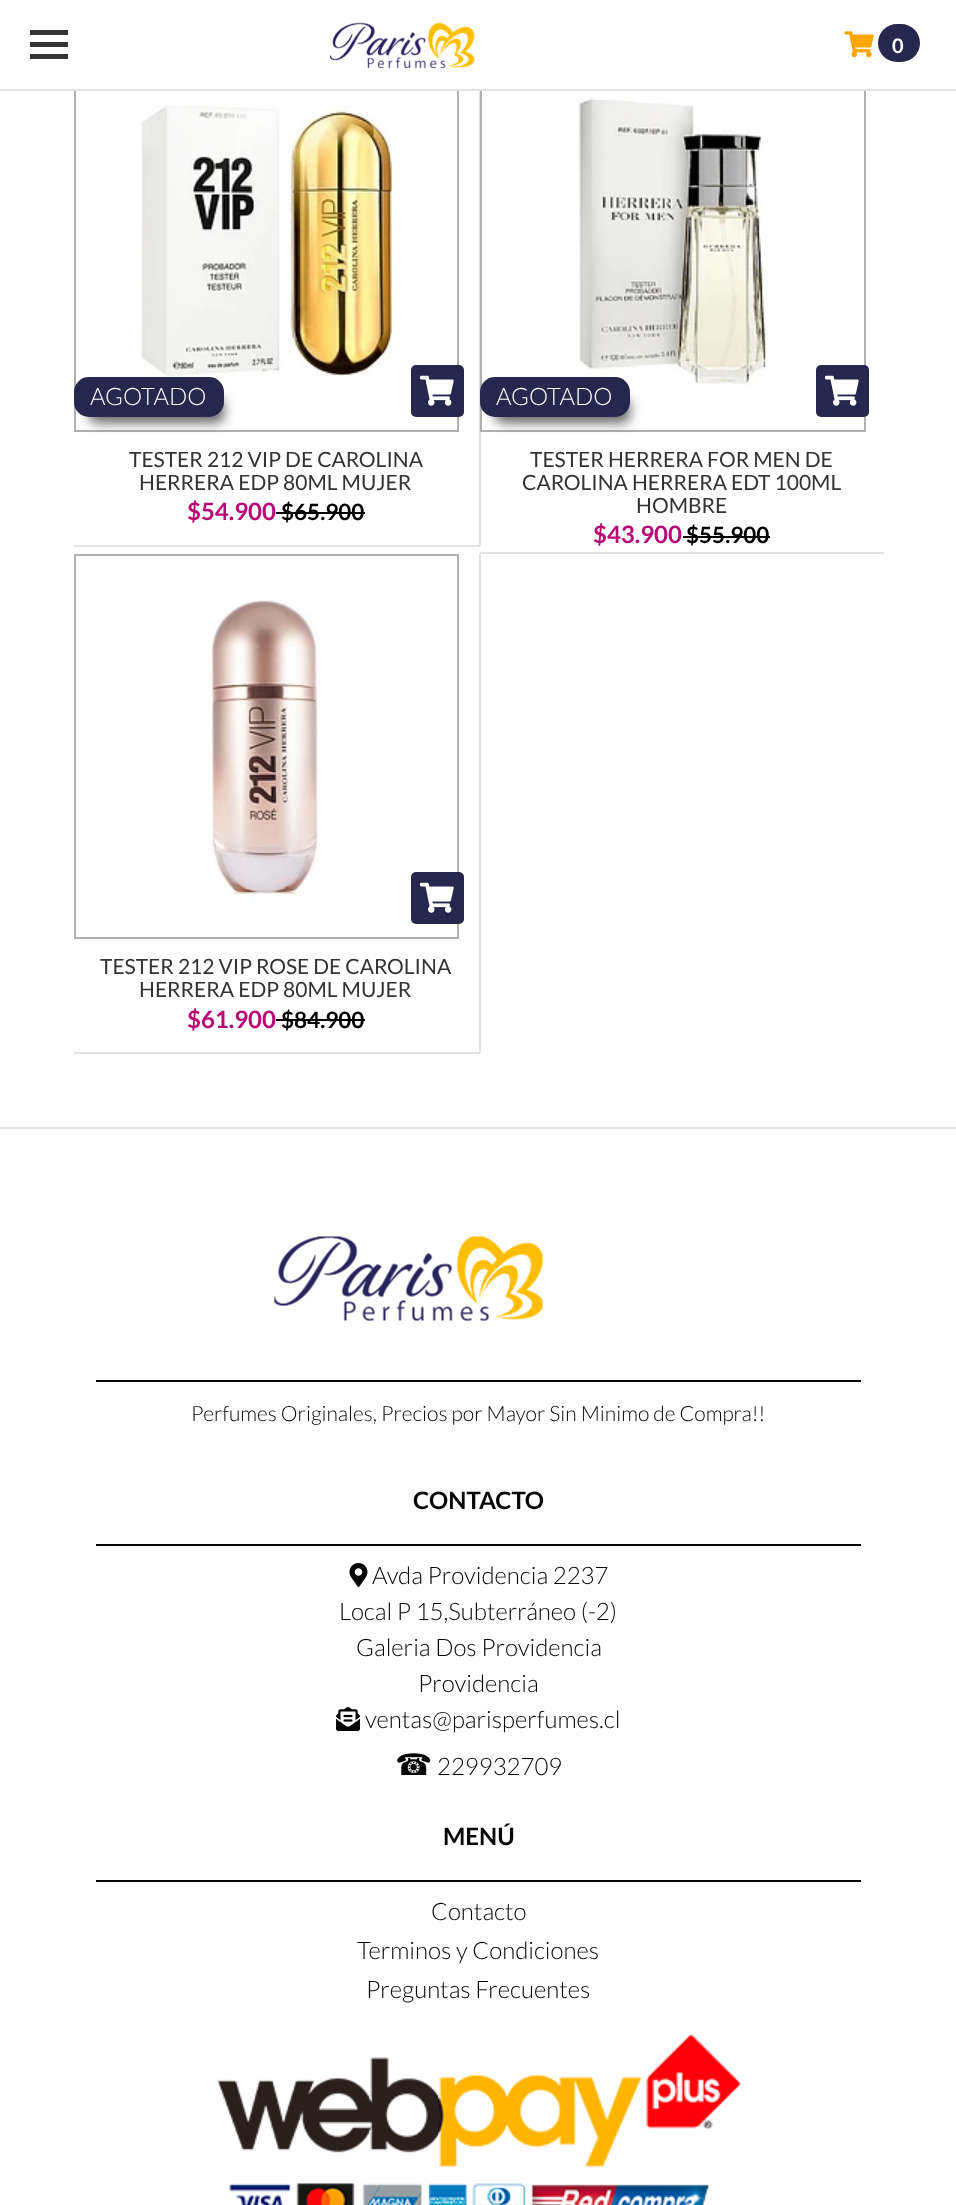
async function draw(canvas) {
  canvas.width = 956;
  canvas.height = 2205;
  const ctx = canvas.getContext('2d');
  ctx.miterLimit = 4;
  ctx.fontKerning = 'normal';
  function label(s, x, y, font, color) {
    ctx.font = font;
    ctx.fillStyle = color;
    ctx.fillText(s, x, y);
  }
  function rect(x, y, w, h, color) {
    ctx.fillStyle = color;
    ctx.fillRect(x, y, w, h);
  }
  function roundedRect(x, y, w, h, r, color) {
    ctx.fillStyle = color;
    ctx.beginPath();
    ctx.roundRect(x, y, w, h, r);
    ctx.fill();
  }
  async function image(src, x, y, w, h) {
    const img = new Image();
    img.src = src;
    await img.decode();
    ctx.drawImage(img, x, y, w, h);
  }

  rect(0, 0, 956, 2205, '#fff');
  rect(30, 30, 38, 5, '#333');
  rect(30, 42, 38, 5, '#333');
  rect(30, 54, 38, 5, '#333');
  ctx.strokeStyle = '#b0b0b0';
  ctx.lineWidth = 2;
  ctx.strokeRect(75, 48, 383, 383);
  rect(479, 91, 2, 455, '#e1e1e1');
  ctx.strokeRect(481, 48, 384, 383);
  rect(74, 47, 792, 42, '#fff');
  rect(0, 89, 956, 2, '#e1e1e1');
  await image('assets/img1.png', 329, 22, 146, 47);
  await image('assets/img2.png', 844, 31, 30, 27);
  roundedRect(878, 24, 42, 38, 19, '#25274d');
  label('0', 892, 53, 'bold 20px Lato', '#fff');
  rect(74, 545, 406, 2, '#e1e1e1');
  await image('assets/img3.png', 140, 105, 254, 272);
  ctx.fillStyle = '#00000099';
  ctx.filter = 'blur(6px)';
  ctx.beginPath();
  ctx.roundRect(89, 398, 135, 25, 8);
  ctx.fill();
  ctx.filter = 'none';
  ctx.fillStyle = '#25274d';
  ctx.beginPath();
  ctx.roundRect(75, 378, 148, 38, 14);
  ctx.fill();
  ctx.strokeStyle = '#25274d';
  ctx.stroke();
  label('AGOTADO', 90, 405, '300 24px Lato', '#fff');
  roundedRect(411, 365, 53, 52, 5, '#25274d');
  await image('assets/img4.png', 420, 375, 34, 31);
  label('TESTER 212 VIP DE CAROLINA', 129, 467, '21px Lato', '#333');
  label('HERRERA EDP 80ML MUJER', 139, 490, '21px Lato', '#333');
  label('$54.900', 187, 520, 'bold 24px Lato', '#ba0776');
  label('$65.900', 281, 520, 'bold 22.5px Lato', '#000');
  rect(276, 512, 89, 2, '#000');
  rect(480, 552, 404, 2, '#e1e1e1');
  await image('assets/img5.png', 576, 98, 192, 288);
  ctx.fillStyle = '#00000099';
  ctx.filter = 'blur(6px)';
  ctx.beginPath();
  ctx.roundRect(495, 398, 135, 25, 8);
  ctx.fill();
  ctx.filter = 'none';
  ctx.fillStyle = '#25274d';
  ctx.beginPath();
  ctx.roundRect(481, 378, 148, 38, 14);
  ctx.fill();
  ctx.stroke();
  label('AGOTADO', 496, 405, '300 24px Lato', '#fff');
  roundedRect(816, 365, 53, 52, 5, '#25274d');
  await image('assets/img4.png', 825, 375, 34, 31);
  label('TESTER HERRERA FOR MEN DE', 530, 467, '21px Lato', '#333');
  label('CAROLINA HERRERA EDT 100ML', 522, 490, '21px Lato', '#333');
  label('HOMBRE', 636, 513, '21px Lato', '#333');
  label('$43.900', 593, 543, 'bold 24px Lato', '#ba0776');
  label('$55.900', 686, 543, 'bold 22.5px Lato', '#000');
  rect(683, 536, 87, 2, '#000');
  rect(479, 554, 2, 499, '#e1e1e1');
  rect(74, 1052, 406, 2, '#e1e1e1');
  ctx.strokeStyle = '#b0b0b0';
  ctx.strokeRect(75, 555, 383, 383);
  await image('assets/img6.png', 206, 600, 114, 301);
  roundedRect(411, 872, 53, 52, 5, '#25274d');
  await image('assets/img4.png', 420, 882, 34, 31);
  label('TESTER 212 VIP ROSE DE CAROLINA', 100, 974, '21px Lato', '#333');
  label('HERRERA EDP 80ML MUJER', 139, 997, '21px Lato', '#333');
  label('$61.900', 187, 1028, 'bold 24px Lato', '#ba0776');
  label('$84.900', 281, 1028, 'bold 22.5px Lato', '#000');
  rect(276, 1019, 89, 2, '#000');
  rect(0, 1127, 956, 2, '#e1e1e1');
  await image('assets/img7.png', 273, 1236, 271, 86);
  rect(96, 1380, 765, 2, '#060605');
  label('Perfumes Originales, Precios por Mayor Sin Minimo de Compra!!', 191, 1421, '300 21px Lato', '#060605');
  rect(96, 1544, 765, 2, '#060605');
  label('CONTACTO', 413, 1509, 'bold 24px Lato', '#060605');
  await image('assets/img8.png', 349, 1563, 19, 24);
  label('Avda Providencia 2237', 372, 1584, '300 24px Lato', '#060605');
  label('Local P 15,Subterráneo (-2)', 339, 1620, '300 24px Lato', '#060605');
  label('Galeria Dos Providencia', 356, 1656, '300 24px Lato', '#060605');
  label('Providencia', 418, 1692, '300 24px Lato', '#060605');
  await image('assets/img9.png', 336, 1707, 24, 24);
  label('ventas@parisperfumes.cl', 365, 1728, '300 24px Lato', '#060605');
  label('☎', 395, 1775, '30px DejaVu Sans', '#060605');
  label('229932709', 437, 1775, '300 24px Lato', '#060605');
  rect(96, 1880, 765, 2, '#060605');
  label('MENÚ', 443, 1845, 'bold 24px Lato', '#060605');
  label('Contacto', 431, 1920, '300 24px Lato', '#060605');
  label('Terminos y Condiciones', 357, 1959, '300 24px Lato', '#060605');
  label('Preguntas Frecuentes', 366, 1998, '300 24px Lato', '#060605');
  await image('assets/img10.png', 217, 2034, 524, 171);
}

draw(document.querySelector('canvas'));
